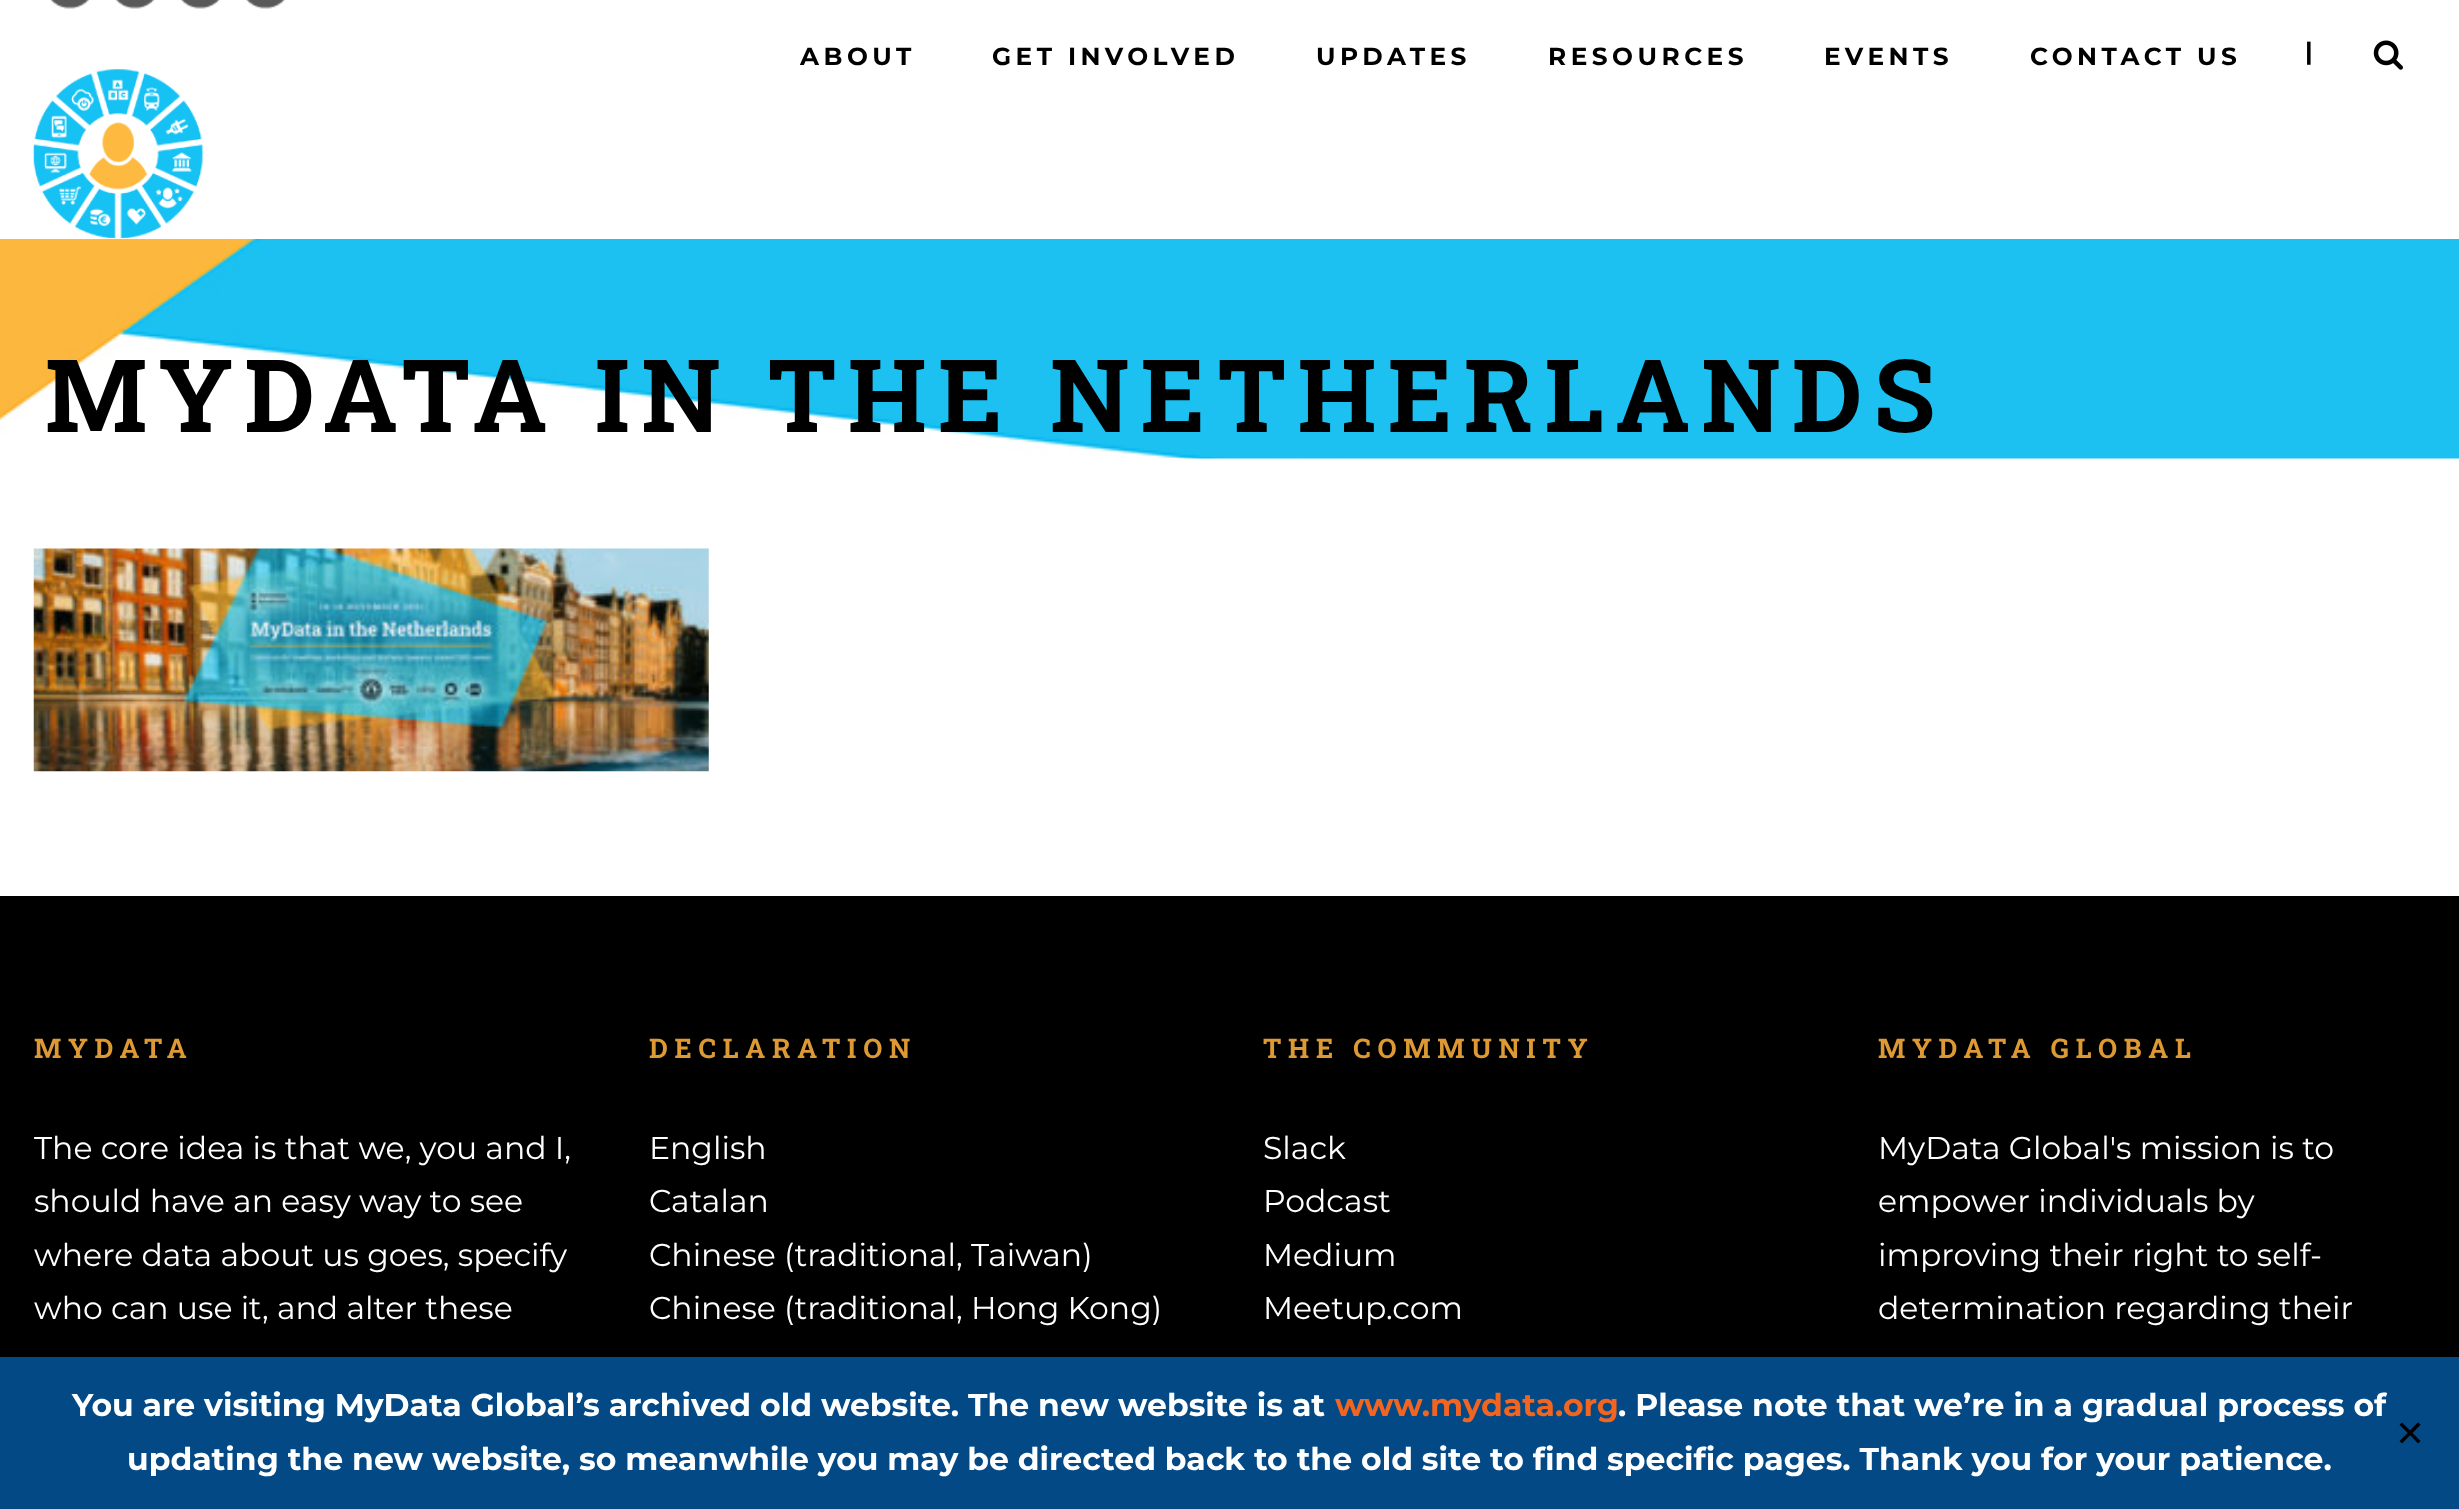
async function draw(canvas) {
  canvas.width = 2459;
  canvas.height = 1509;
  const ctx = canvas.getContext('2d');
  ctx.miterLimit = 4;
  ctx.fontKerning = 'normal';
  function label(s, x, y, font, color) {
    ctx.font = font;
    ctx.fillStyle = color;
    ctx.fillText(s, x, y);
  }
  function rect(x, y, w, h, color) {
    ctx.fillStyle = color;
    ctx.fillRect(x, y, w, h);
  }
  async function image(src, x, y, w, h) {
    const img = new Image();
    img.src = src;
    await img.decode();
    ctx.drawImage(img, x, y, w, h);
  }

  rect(0, 0, 2459, 1509, '#fff');
  await image('assets/img1.png', 50, 0, 39, 9);
  await image('assets/img2.png', 115, 0, 40, 9);
  await image('assets/img3.png', 181, 0, 39, 9);
  await image('assets/img4.png', 246, 0, 39, 9);
  ctx.letterSpacing = '4.5px';
  label('ABOUT', 800, 65, 'bold 24.75px Montserrat', '#000');
  label('GET INVOLVED', 992, 65, 'bold 24.75px Montserrat', '#000');
  label('UPDATES', 1316, 65, 'bold 24.75px Montserrat', '#000');
  label('RESOURCES', 1548, 65, 'bold 24.75px Montserrat', '#000');
  label('EVENTS', 1824, 65, 'bold 24.75px Montserrat', '#000');
  label('CONTACT US', 2030, 65, 'bold 24.75px Montserrat', '#000');
  ctx.letterSpacing = '0px';
  label('|', 2305, 60, 'bold 24.75px Montserrat', '#000');
  await image('assets/img5.png', 2373, 40, 30, 30);
  await image('assets/img6.png', 33, 69, 170, 169);
  await image('assets/img7.png', 0, 239, 2459, 220);
  ctx.letterSpacing = '11.25px';
  label('MYDATA IN THE NETHERLANDS', 45, 432, 'bold 101.25px Roboto Slab', '#000');
  await image('assets/img8.png', 33, 548, 676, 224);
  rect(0, 896, 2459, 461, '#000');
  ctx.letterSpacing = '6.75px';
  label('MYDATA', 34, 1058, 'bold 27px Roboto Slab', '#d93');
  ctx.letterSpacing = '0px';
  label('The core idea is that we, you and I,', 34, 1159, '31.5px Montserrat', '#fff');
  label('should have an easy way to see', 34, 1212, '31.5px Montserrat', '#fff');
  label('where data about us goes, specify', 34, 1266, '31.5px Montserrat', '#fff');
  label('who can use it, and alter these', 34, 1319, '31.5px Montserrat', '#fff');
  ctx.letterSpacing = '6.75px';
  label('DECLARATION', 649, 1058, 'bold 27px Roboto Slab', '#d93');
  ctx.letterSpacing = '0px';
  label('English', 649, 1159, '31.5px Montserrat', '#fff');
  label('Catalan', 649, 1212, '31.5px Montserrat', '#fff');
  label('Chinese (traditional, Taiwan)', 649, 1266, '31.5px Montserrat', '#fff');
  label('Chinese (traditional, Hong Kong)', 649, 1319, '31.5px Montserrat', '#fff');
  ctx.letterSpacing = '6.75px';
  label('THE COMMUNITY', 1263, 1058, 'bold 27px Roboto Slab', '#d93');
  ctx.letterSpacing = '0px';
  label('Slack', 1263, 1159, '31.5px Montserrat', '#fff');
  label('Podcast', 1263, 1212, '31.5px Montserrat', '#fff');
  label('Medium', 1263, 1266, '31.5px Montserrat', '#fff');
  label('Meetup.com', 1263, 1319, '31.5px Montserrat', '#fff');
  ctx.letterSpacing = '6.75px';
  label('MYDATA GLOBAL', 1878, 1058, 'bold 27px Roboto Slab', '#d93');
  ctx.letterSpacing = '0px';
  label('MyData Global\'s mission is to', 1878, 1159, '31.5px Montserrat', '#fff');
  label('empower individuals by', 1878, 1212, '31.5px Montserrat', '#fff');
  label('improving their right to self-', 1878, 1266, '31.5px Montserrat', '#fff');
  label('determination regarding their', 1878, 1319, '31.5px Montserrat', '#fff');
  rect(0, 1357, 2459, 152, '#024985');
  label('You are visiting MyData Global’s archived old website. The new website is at', 72, 1416, 'bold 31.5px Montserrat', '#fff');
  label('www.mydata.org', 1335, 1416, 'bold 31.5px Montserrat', '#f16521');
  label('. Please note that we’re in a gradual process of', 1618, 1416, 'bold 31.5px Montserrat', '#fff');
  label('updating the new website, so meanwhile you may be directed back to the old site to find specific pages. Thank you for your patience.', 127, 1470, 'bold 31.5px Montserrat', '#fff');
  label('✕', 2395, 1446, '36px DejaVu Sans', '#000');
}

draw(document.querySelector('canvas'));
